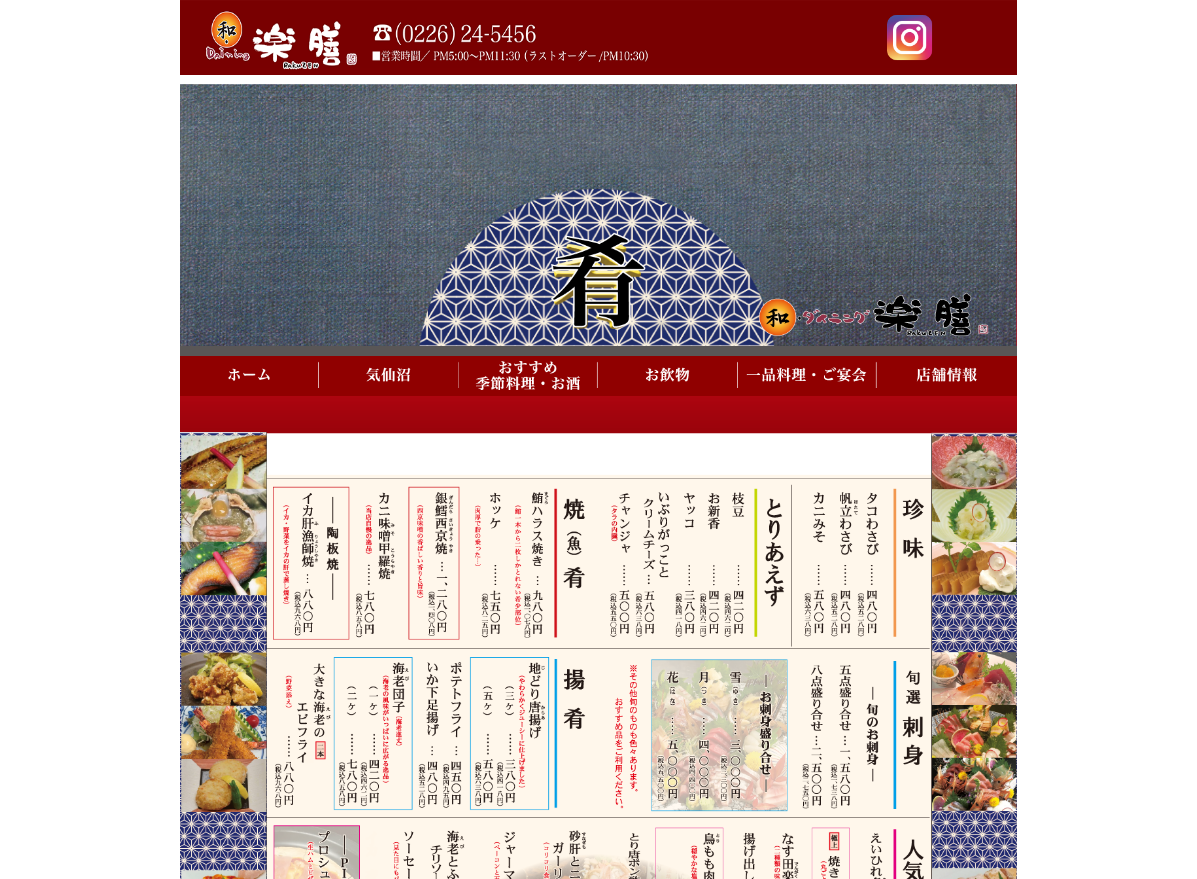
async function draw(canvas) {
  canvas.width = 1197;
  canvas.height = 879;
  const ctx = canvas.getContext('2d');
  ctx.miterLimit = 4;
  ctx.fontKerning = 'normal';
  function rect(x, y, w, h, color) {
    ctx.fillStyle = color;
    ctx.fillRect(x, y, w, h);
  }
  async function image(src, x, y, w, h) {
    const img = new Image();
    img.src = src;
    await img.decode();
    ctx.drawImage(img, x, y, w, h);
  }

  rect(0, 0, 1197, 879, '#fff');
  await image('assets/img1.png', 180, 0, 837, 434);
  await image('assets/img2.png', 180, 0, 837, 70);
  await image('assets/img3.png', 887, 15, 46, 46);
  rect(180, 75, 837, 9, '#fff');
  await image('assets/img4.png', 180, 84, 837, 262);
  rect(180, 346, 837, 10, '#595656');
  rect(180, 356, 837, 40, '#900000');
  await image('assets/img5.png', 228, 361, 91, 27);
  await image('assets/img6.png', 366, 361, 93, 27);
  await image('assets/img7.png', 475, 361, 123, 29);
  await image('assets/img8.png', 645, 361, 93, 27);
  await image('assets/img9.png', 746, 361, 131, 27);
  await image('assets/img10.png', 916, 367, 61, 15);
  await image('assets/img11.png', 180, 432, 837, 447);
}

draw(document.querySelector('canvas'));
